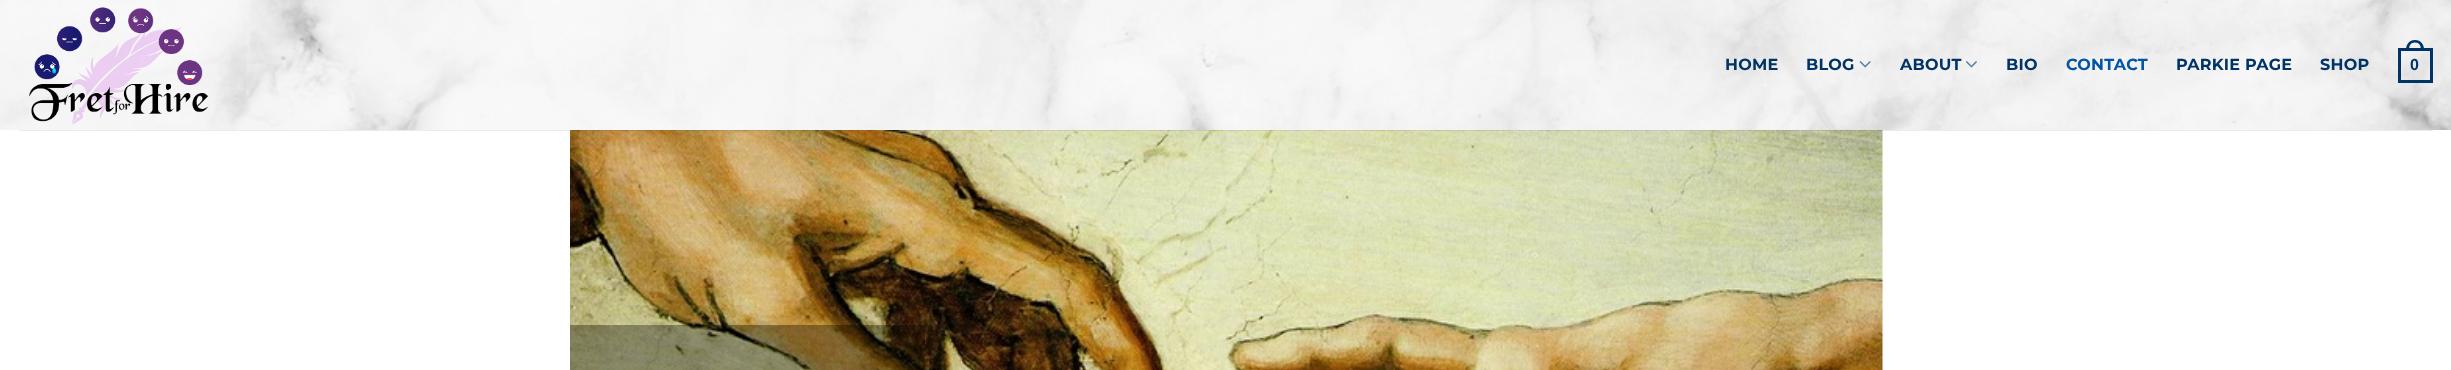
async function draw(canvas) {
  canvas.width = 2451;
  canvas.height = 370;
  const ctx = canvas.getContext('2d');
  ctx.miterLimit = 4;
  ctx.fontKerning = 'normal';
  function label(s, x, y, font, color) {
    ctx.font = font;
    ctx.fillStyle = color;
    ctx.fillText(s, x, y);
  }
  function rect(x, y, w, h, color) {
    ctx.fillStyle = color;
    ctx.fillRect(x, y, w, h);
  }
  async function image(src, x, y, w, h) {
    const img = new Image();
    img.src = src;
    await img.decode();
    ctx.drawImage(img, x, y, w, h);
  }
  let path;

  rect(0, 0, 2451, 370, '#fff');
  await image('assets/img1.png', 0, 0, 2451, 130);
  await image('assets/img2.png', 29, 7, 180, 118);
  ctx.letterSpacing = '0.25px';
  label('HOME', 1725, 70, '100 16px Montserrat', '#036');
  label('BLOG', 1806, 70, '100 16px Montserrat', '#036');
  await image('assets/img3.png', 1859, 61, 12, 7);
  label('ABOUT', 1900, 70, '100 16px Montserrat', '#036');
  await image('assets/img4.png', 1966, 61, 11, 7);
  label('BIO', 2006, 70, '100 16px Montserrat', '#036');
  label('CONTACT', 2066, 70, '100 16px Montserrat', '#0254a5');
  label('PARKIE PAGE', 2176, 70, '100 16px Montserrat', '#036');
  label('SHOP', 2320, 70, '100 16px Montserrat', '#036');
  ctx.strokeStyle = '#036';
  ctx.lineWidth = 3;
  ctx.strokeRect(2399.5, 49.5, 32, 32);
  path = new Path2D('M2415 40C2421 40 2424 44.5 2424 50H2406C2406 44.5 2409 40 2415 40ZM2415 42.5C2419.5 42.5 2421 46 2421 50H2409C2409 46 2410.5 42.5 2415 42.5Z');
  ctx.fill(path, 'evenodd');
  label('0', 2410, 70, 'bold 16px Liberation Sans', '#036');
  await image('assets/img5.png', 570, 130, 1313, 240);
  rect(19, 130, 2414, 1, '#3f3f3f1a');
  rect(570, 325, 355, 45, '#00000057');
}

draw(document.querySelector('canvas'));
